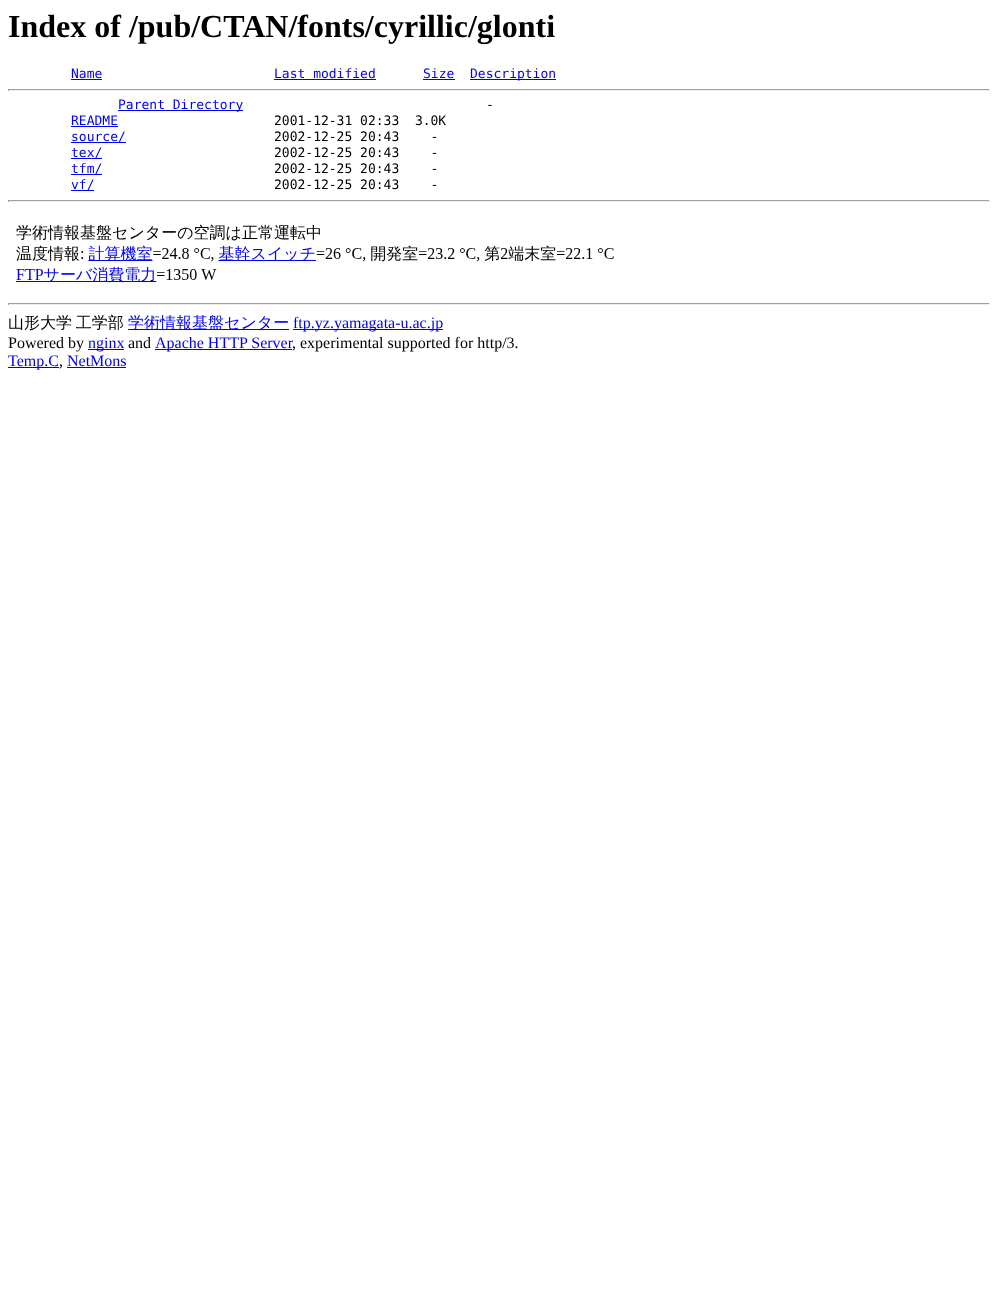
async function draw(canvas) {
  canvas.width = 998;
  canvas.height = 1308;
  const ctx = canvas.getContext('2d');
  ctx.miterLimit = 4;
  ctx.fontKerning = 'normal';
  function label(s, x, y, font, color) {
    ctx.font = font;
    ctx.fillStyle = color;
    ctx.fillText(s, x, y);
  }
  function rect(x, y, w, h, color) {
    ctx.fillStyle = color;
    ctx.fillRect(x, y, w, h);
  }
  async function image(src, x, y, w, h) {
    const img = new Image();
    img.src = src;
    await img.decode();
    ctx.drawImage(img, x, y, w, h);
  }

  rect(0, 0, 998, 1308, '#fff');
  label('Index of /pub/CTAN/fonts/cyrillic/glonti', 8, 37, 'bold 32px Liberation Serif', '#000');
  label('Name', 71, 78, '13px DejaVu Sans Mono', '#00e');
  rect(71, 79, 31, 1, '#00e');
  label('Last modified', 274, 78, '13px DejaVu Sans Mono', '#00e');
  rect(274, 79, 102, 1, '#00e');
  label('Size', 423, 78, '13px DejaVu Sans Mono', '#00e');
  rect(423, 79, 32, 1, '#00e');
  rect(470, 79, 86, 1, '#00e');
  label('Description', 470, 78, '13px DejaVu Sans Mono', '#00e');
  rect(8, 89, 982, 1, '#9f9f9f');
  rect(989, 89, 1, 2, '#eee');
  rect(8, 90, 982, 1, '#eee');
  rect(8, 89, 1, 2, '#9f9f9f');
  rect(118, 110, 125, 1, '#00e');
  label('Parent Directory', 118, 109, '13px DejaVu Sans Mono', '#00e');
  label('-', 486, 109, '13px DejaVu Sans Mono', '#000');
  label('README', 71, 125, '13px DejaVu Sans Mono', '#00e');
  rect(71, 126, 47, 1, '#00e');
  label('2001-12-31 02:33  3.0K', 274, 125, '13px DejaVu Sans Mono', '#000');
  rect(71, 142, 55, 1, '#00e');
  label('source/', 71, 141, '13px DejaVu Sans Mono', '#00e');
  label('2002-12-25 20:43    -', 274, 141, '13px DejaVu Sans Mono', '#000');
  rect(71, 158, 31, 1, '#00e');
  label('tex/', 71, 157, '13px DejaVu Sans Mono', '#00e');
  label('2002-12-25 20:43    -', 274, 157, '13px DejaVu Sans Mono', '#000');
  rect(71, 174, 31, 1, '#00e');
  label('tfm/', 71, 173, '13px DejaVu Sans Mono', '#00e');
  label('2002-12-25 20:43    -', 274, 173, '13px DejaVu Sans Mono', '#000');
  rect(71, 190, 23, 1, '#00e');
  label('vf/', 71, 189, '13px DejaVu Sans Mono', '#00e');
  label('2002-12-25 20:43    -', 274, 189, '13px DejaVu Sans Mono', '#000');
  rect(8, 200, 982, 1, '#9f9f9f');
  rect(989, 200, 1, 2, '#eee');
  rect(8, 201, 982, 1, '#eee');
  rect(8, 200, 1, 2, '#9f9f9f');
  await image('assets/img1.png', 16, 224, 598, 59);
  rect(8, 303, 982, 1, '#9f9f9f');
  rect(989, 303, 1, 2, '#eee');
  rect(8, 304, 982, 1, '#eee');
  rect(8, 303, 1, 2, '#9f9f9f');
  ctx.wordSpacing = '-1px';
  label('山形大学 工学部', 8, 328, '500 16px WenQuanYi Zen Hei', '#000');
  rect(128, 329, 161, 1, '#00e');
  ctx.wordSpacing = '0px';
  label('学術情報基盤センター', 128, 328, '500 16px WenQuanYi Zen Hei', '#00e');
  rect(293, 329, 150, 1, '#00e');
  label('ftp.yz.yamagata-u.ac.jp', 293, 328, '16px Liberation Serif', '#00e');
  label('Powered by', 8, 348, '16px Liberation Serif', '#000');
  rect(88, 349, 36, 1, '#00e');
  label('nginx', 88, 348, '16px Liberation Serif', '#00e');
  label('and', 128, 348, '16px Liberation Serif', '#000');
  rect(155, 349, 137, 1, '#00e');
  label('Apache HTTP Server', 155, 348, '16px Liberation Serif', '#00e');
  label(', experimental supported for http/3.', 292, 348, '16px Liberation Serif', '#000');
  rect(8, 367, 51, 1, '#00e');
  label('Temp.C', 8, 366, '16px Liberation Serif', '#00e');
  label(',', 59, 366, '16px Liberation Serif', '#000');
  label('NetMons', 67, 366, '16px Liberation Serif', '#00e');
  rect(67, 367, 59, 1, '#00e');
}

draw(document.querySelector('canvas'));
